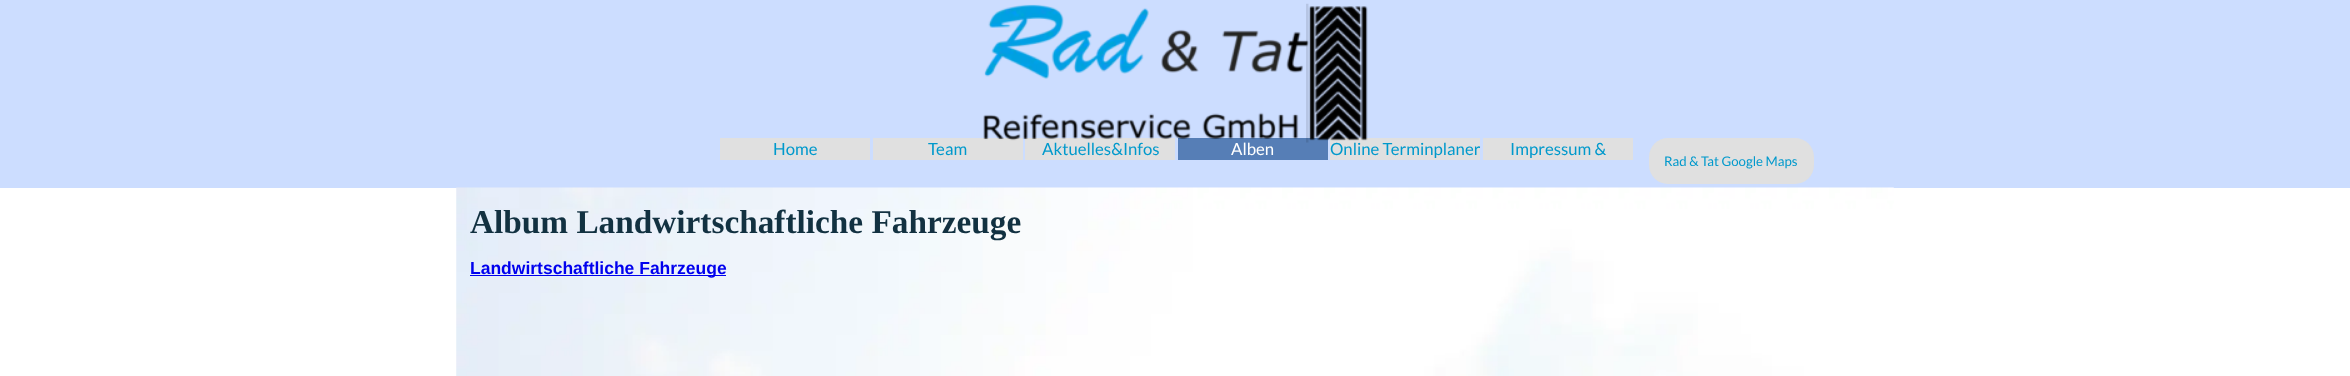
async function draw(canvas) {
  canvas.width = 2350;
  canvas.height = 376;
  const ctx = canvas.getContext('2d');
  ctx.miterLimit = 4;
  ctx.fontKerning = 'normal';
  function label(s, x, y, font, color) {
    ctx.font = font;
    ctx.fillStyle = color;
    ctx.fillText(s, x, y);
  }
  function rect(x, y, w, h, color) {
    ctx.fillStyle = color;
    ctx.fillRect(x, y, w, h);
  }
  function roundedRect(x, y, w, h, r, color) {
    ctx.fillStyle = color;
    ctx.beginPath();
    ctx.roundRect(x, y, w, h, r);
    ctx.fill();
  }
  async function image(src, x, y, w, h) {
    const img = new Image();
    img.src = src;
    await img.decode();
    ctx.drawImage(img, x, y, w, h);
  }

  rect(0, 0, 2350, 376, '#fff');
  rect(0, 0, 2350, 188, '#cdf');
  rect(873, 138, 150, 22, '#e0e0e0');
  rect(1025, 138, 150, 22, '#e0e0e0');
  label('Aktuelles&Infos', 1042, 155, '16.75px Lato', '#09c');
  rect(1178, 138, 150, 22, '#567eb6');
  label('Alben', 1231, 155, '16.75px Lato', '#fff');
  rect(1330, 138, 150, 22, '#e0e0e0');
  label('Online Terminplaner', 1330, 155, '16.75px Lato', '#09c');
  await image('assets/img1.png', 983, 3, 385, 140);
  rect(720, 138, 150, 22, '#e0e0e0');
  label('Home', 773, 155, '16.75px Lato', '#09c');
  label('Team', 928, 155, '16.75px Lato', '#09c');
  rect(1483, 138, 150, 22, '#e0e0e0');
  label('Impressum &', 1510, 155, '16.75px Lato', '#09c');
  roundedRect(1649, 138, 165, 46, 19, '#e0e0e0');
  label('Rad & Tat Google Maps', 1664, 166, '13.25px Lato', '#09c');
  await image('assets/img2.png', 456, 187, 1438, 189);
  label('Album Landwirtschaftliche Fahrzeuge', 470, 233, 'bold 33.3px Liberation Serif', '#123141');
  rect(470, 275, 256, 1, '#00e');
  label('Landwirtschaftliche Fahrzeuge', 470, 274, 'bold 17.5px Liberation Sans', '#00e');
}

draw(document.querySelector('canvas'));
